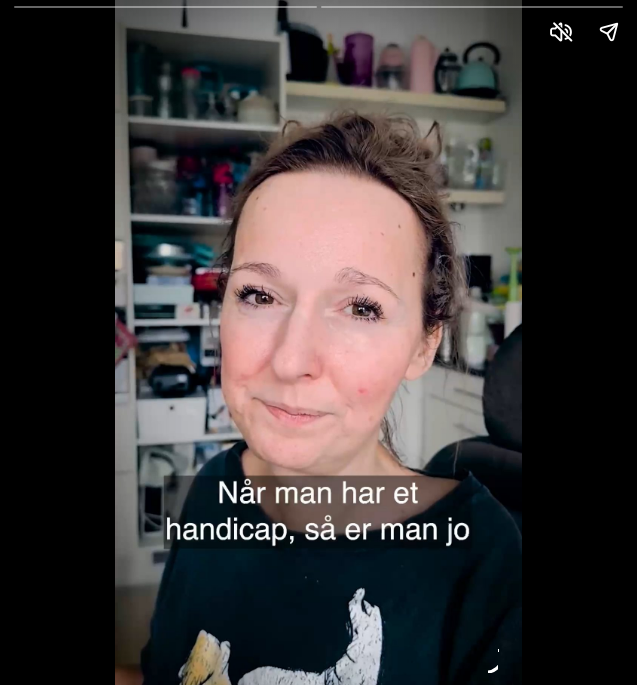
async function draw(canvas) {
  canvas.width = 637;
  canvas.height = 685;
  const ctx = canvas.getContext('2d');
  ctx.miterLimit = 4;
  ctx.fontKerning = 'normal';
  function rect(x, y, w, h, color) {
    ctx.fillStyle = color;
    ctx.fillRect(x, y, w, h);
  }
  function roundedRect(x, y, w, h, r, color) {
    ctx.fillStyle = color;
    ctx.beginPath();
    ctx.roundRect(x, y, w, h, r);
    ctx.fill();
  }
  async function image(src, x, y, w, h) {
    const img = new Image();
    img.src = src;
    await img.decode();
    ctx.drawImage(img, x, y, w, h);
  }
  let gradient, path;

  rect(0, 0, 637, 685, '#000');
  await image('assets/img3.png', 115, 0, 407, 685);
  gradient = ctx.createLinearGradient(319, 0, 319, 140);
  gradient.addColorStop(0, '#00000045');
  gradient.addColorStop(0.33, '#00000021');
  gradient.addColorStop(0.67, '#00000012');
  gradient.addColorStop(1, '#00000000');
  ctx.fillStyle = gradient;
  ctx.fillRect(115, 0, 407, 126);
  roundedRect(14, 6, 303, 2, 1, '#ffffff66');
  roundedRect(321, 6, 302, 2, 1, '#ffffff66');
  await image('assets/img1.png', 550, 22, 23, 20);
  await image('assets/img2.png', 599, 22, 20, 20);
  ctx.save();
  ctx.beginPath();
  ctx.rect(486, 649, 12, 24);
  ctx.clip();
  path = new Path2D('M485 641.5C500 640 508 659 496.5 668.5C494 670.5 491 672 488 672');
  ctx.strokeStyle = '#fff';
  ctx.lineWidth = 3;
  ctx.stroke(path);
  ctx.restore();
  rect(498, 649, 1, 3, '#fff');
}

draw(document.querySelector('canvas'));
